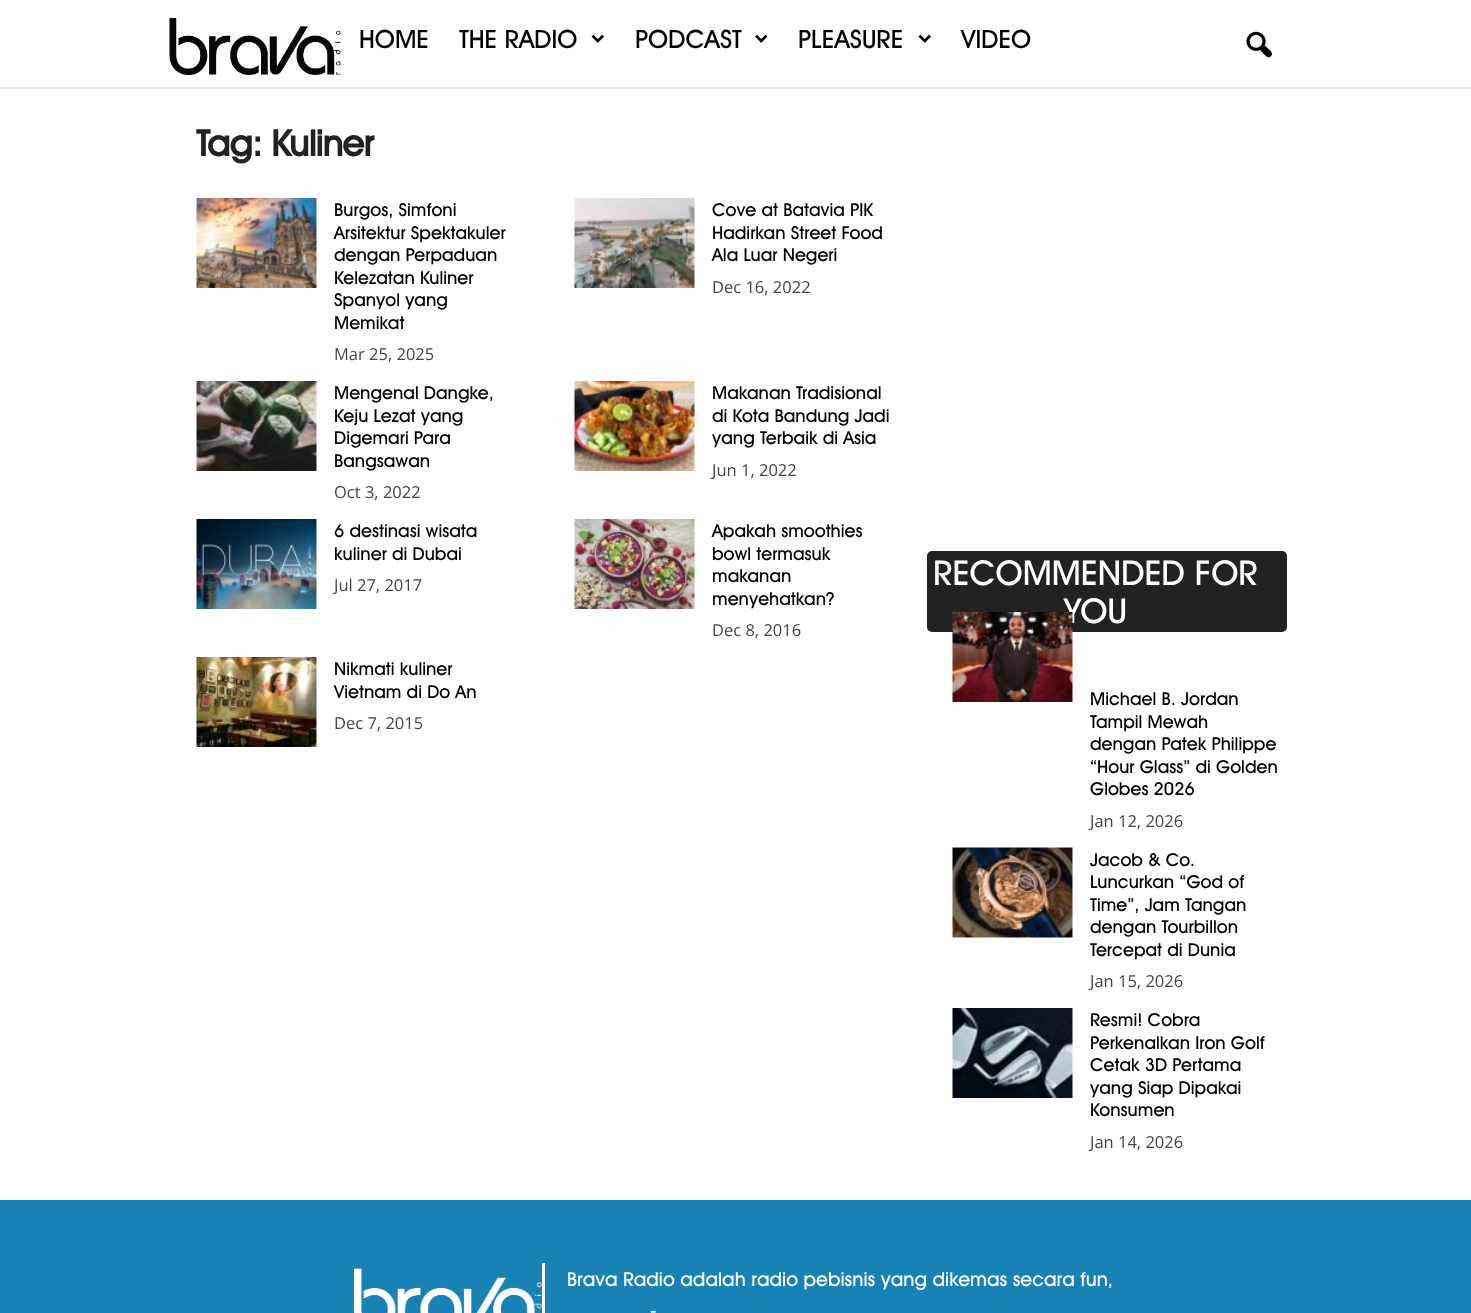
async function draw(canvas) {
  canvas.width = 1471;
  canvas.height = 1313;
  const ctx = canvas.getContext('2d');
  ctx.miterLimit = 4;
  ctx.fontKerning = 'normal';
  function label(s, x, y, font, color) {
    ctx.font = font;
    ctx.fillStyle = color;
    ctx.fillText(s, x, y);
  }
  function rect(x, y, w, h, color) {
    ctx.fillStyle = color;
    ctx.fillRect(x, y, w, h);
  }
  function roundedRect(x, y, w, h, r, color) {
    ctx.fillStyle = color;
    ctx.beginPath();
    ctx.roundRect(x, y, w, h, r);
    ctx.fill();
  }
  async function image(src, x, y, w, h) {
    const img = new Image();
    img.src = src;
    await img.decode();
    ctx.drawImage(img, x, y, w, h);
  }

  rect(0, 0, 1471, 1313, '#fff');
  rect(0, 87, 1471, 2, '#e6e6e6');
  await image('assets/img1.png', 169, 18, 172, 57);
  label('HOME', 359, 48, '500 25.5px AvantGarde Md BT', '#000');
  label('THE RADIO', 459, 48, '500 25.5px AvantGarde Md BT', '#000');
  await image('assets/img2.png', 591, 34, 13, 9);
  label('PODCAST', 635, 48, '500 25.5px AvantGarde Md BT', '#000');
  await image('assets/img3.png', 755, 34, 13, 9);
  label('PLEASURE', 798, 48, '500 25.5px AvantGarde Md BT', '#000');
  await image('assets/img2.png', 918, 34, 13, 9);
  label('VIDEO', 961, 48, '500 25.5px AvantGarde Md BT', '#000');
  await image('assets/img4.png', 1246, 31, 26, 27);
  ctx.letterSpacing = '-0.75px';
  label('Tag: Kuliner', 196, 156, 'bold 36px AvantGarde Md BT', '#222');
  await image('assets/img5.png', 196, 198, 121, 90);
  ctx.letterSpacing = '0px';
  label('Burgos, Simfoni', 334, 216, '500 18px AvantGarde Md BT', '#000');
  label('Arsitektur Spektakuler', 334, 239, '500 18px AvantGarde Md BT', '#000');
  label('dengan Perpaduan', 334, 261, '500 18px AvantGarde Md BT', '#000');
  label('Kelezatan Kuliner', 334, 284, '500 18px AvantGarde Md BT', '#000');
  label('Spanyol yang', 334, 306, '500 18px AvantGarde Md BT', '#000');
  label('Memikat', 334, 329, '500 18px AvantGarde Md BT', '#000');
  label('Mar 25, 2025', 334, 360, '16.5px Open Sans', '#444');
  await image('assets/img6.png', 574, 198, 121, 90);
  label('Cove at Batavia PIK', 712, 216, '500 18px AvantGarde Md BT', '#000');
  label('Hadirkan Street Food', 712, 239, '500 18px AvantGarde Md BT', '#000');
  label('Ala Luar Negeri', 712, 261, '500 18px AvantGarde Md BT', '#000');
  label('Dec 16, 2022', 712, 293, '16.5px Open Sans', '#444');
  await image('assets/img7.png', 196, 381, 121, 90);
  label('Mengenal Dangke,', 334, 399, '500 18px AvantGarde Md BT', '#000');
  label('Keju Lezat yang', 334, 422, '500 18px AvantGarde Md BT', '#000');
  label('Digemari Para', 334, 444, '500 18px AvantGarde Md BT', '#000');
  label('Bangsawan', 334, 467, '500 18px AvantGarde Md BT', '#000');
  label('Oct 3, 2022', 334, 498, '16.5px Open Sans', '#444');
  await image('assets/img8.png', 574, 381, 121, 90);
  label('Makanan Tradisional', 712, 399, '500 18px AvantGarde Md BT', '#000');
  label('di Kota Bandung Jadi', 712, 422, '500 18px AvantGarde Md BT', '#000');
  label('yang Terbaik di Asia', 712, 444, '500 18px AvantGarde Md BT', '#000');
  label('Jun 1, 2022', 712, 476, '16.5px Open Sans', '#444');
  await image('assets/img9.png', 196, 519, 121, 90);
  label('6 destinasi wisata', 334, 537, '500 18px AvantGarde Md BT', '#000');
  label('kuliner di Dubai', 334, 560, '500 18px AvantGarde Md BT', '#000');
  label('Jul 27, 2017', 334, 591, '16.5px Open Sans', '#444');
  await image('assets/img10.png', 574, 519, 121, 90);
  label('Apakah smoothies', 712, 537, '500 18px AvantGarde Md BT', '#000');
  label('bowl termasuk', 712, 560, '500 18px AvantGarde Md BT', '#000');
  label('makanan', 712, 582, '500 18px AvantGarde Md BT', '#000');
  label('menyehatkan?', 712, 605, '500 18px AvantGarde Md BT', '#000');
  label('Dec 8, 2016', 712, 636, '16.5px Open Sans', '#444');
  await image('assets/img11.png', 196, 657, 121, 90);
  label('Nikmati kuliner', 334, 675, '500 18px AvantGarde Md BT', '#000');
  label('Vietnam di Do An', 334, 698, '500 18px AvantGarde Md BT', '#000');
  label('Dec 7, 2015', 334, 729, '16.5px Open Sans', '#444');
  roundedRect(927, 551, 360, 81, 5, '#222');
  label('RECOMMENDED FOR', 933, 585, '500 34.5px AvantGarde Md BT', '#fff');
  label('YOU', 1064, 623, '500 34.5px AvantGarde Md BT', '#fff');
  await image('assets/img12.png', 952, 612, 121, 90);
  label('Michael B. Jordan', 1090, 705, '500 18px AvantGarde Md BT', '#000');
  label('Tampil Mewah', 1090, 728, '500 18px AvantGarde Md BT', '#000');
  label('dengan Patek Philippe', 1090, 750, '500 18px AvantGarde Md BT', '#000');
  label('“Hour Glass” di Golden', 1090, 773, '500 18px AvantGarde Md BT', '#000');
  label('Globes 2026', 1090, 795, '500 18px AvantGarde Md BT', '#000');
  label('Jan 12, 2026', 1090, 827, '16.5px Open Sans', '#444');
  await image('assets/img13.png', 952, 847, 121, 91);
  label('Jacob & Co.', 1090, 866, '500 18px AvantGarde Md BT', '#000');
  label('Luncurkan “God of', 1090, 888, '500 18px AvantGarde Md BT', '#000');
  label('Time”, Jam Tangan', 1090, 911, '500 18px AvantGarde Md BT', '#000');
  label('dengan Tourbillon', 1090, 933, '500 18px AvantGarde Md BT', '#000');
  label('Tercepat di Dunia', 1090, 956, '500 18px AvantGarde Md BT', '#000');
  label('Jan 15, 2026', 1090, 987, '16.5px Open Sans', '#444');
  await image('assets/img14.png', 952, 1008, 121, 90);
  label('Resmi! Cobra', 1090, 1026, '500 18px AvantGarde Md BT', '#000');
  label('Perkenalkan Iron Golf', 1090, 1049, '500 18px AvantGarde Md BT', '#000');
  label('Cetak 3D Pertama', 1090, 1071, '500 18px AvantGarde Md BT', '#000');
  label('yang Siap Dipakai', 1090, 1094, '500 18px AvantGarde Md BT', '#000');
  label('Konsumen', 1090, 1116, '500 18px AvantGarde Md BT', '#000');
  label('Jan 14, 2026', 1090, 1148, '16.5px Open Sans', '#444');
  rect(0, 1200, 1471, 113, '#1882b4');
  rect(542, 1263, 3, 50, '#fff');
  await image('assets/img15.png', 354, 1268, 188, 45);
  label('Brava Radio adalah radio pebisnis yang dikemas secara fun,', 567, 1286, '500 19.5px AvantGarde Md BT', '#fff');
  label('-', 650, 1317, '500 19.5px AvantGarde Md BT', '#fff');
}

draw(document.querySelector('canvas'));
